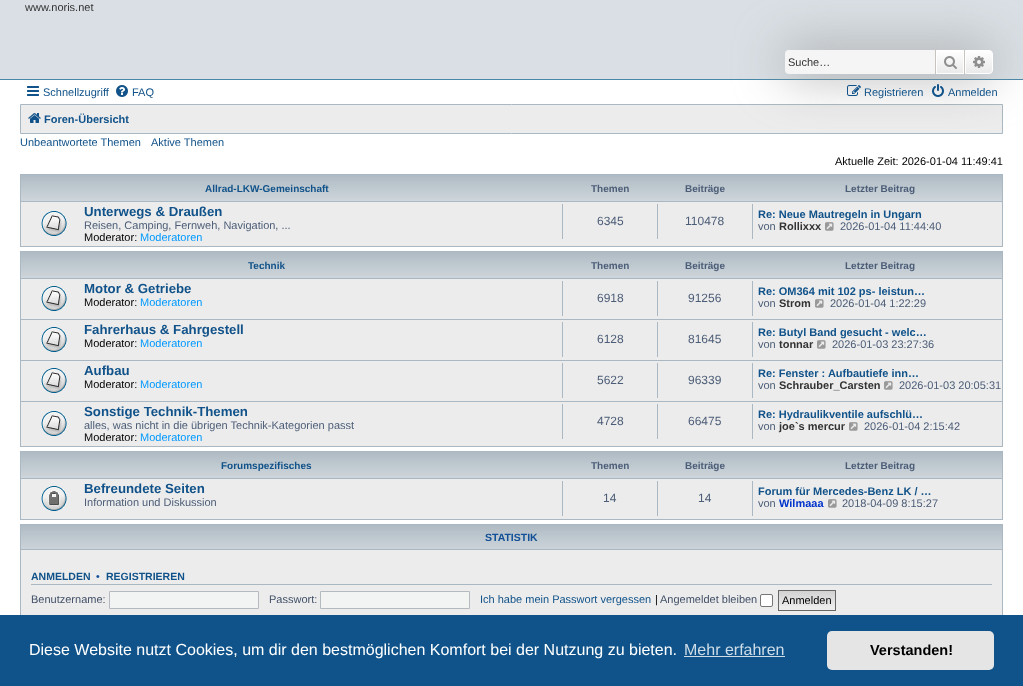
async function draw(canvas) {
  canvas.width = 1023;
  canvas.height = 686;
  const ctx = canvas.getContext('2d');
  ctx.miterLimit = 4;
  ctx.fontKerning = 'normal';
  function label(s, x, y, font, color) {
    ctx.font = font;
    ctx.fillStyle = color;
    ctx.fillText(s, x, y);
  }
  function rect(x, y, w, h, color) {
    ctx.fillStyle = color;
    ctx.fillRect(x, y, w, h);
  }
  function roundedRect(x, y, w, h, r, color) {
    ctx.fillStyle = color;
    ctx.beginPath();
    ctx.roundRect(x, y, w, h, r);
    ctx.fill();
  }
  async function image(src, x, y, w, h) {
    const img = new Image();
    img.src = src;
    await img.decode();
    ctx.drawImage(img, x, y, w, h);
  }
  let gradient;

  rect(0, 0, 1023, 686, '#fff');
  rect(0, 0, 1023, 79, '#d9dfe4');
  rect(0, 79, 1023, 1, '#4787a7');
  label('www.noris.net', 25, 11, '11px Liberation Sans', '#333');
  ctx.fillStyle = '#ececec';
  ctx.beginPath();
  ctx.rect(20.5, 104.5, 982, 29);
  ctx.fill();
  ctx.strokeStyle = '#a9b8c2';
  ctx.stroke();
  ctx.fillStyle = '#999';
  ctx.filter = 'blur(25px)';
  ctx.beginPath();
  ctx.roundRect(785, 50, 208, 24, 4);
  ctx.fill();
  ctx.filter = 'none';
  ctx.fillStyle = '#f5f5f5';
  ctx.beginPath();
  ctx.roundRect(785, 50, 150, 24, [4, 0, 0, 4]);
  ctx.fill();
  label('Suche…', 788, 66, '11px Liberation Sans', '#333');
  gradient = ctx.createLinearGradient(950, 50, 950, 74);
  gradient.addColorStop(0, '#fff');
  gradient.addColorStop(1, '#e9e9e9');
  ctx.fillStyle = gradient;
  ctx.fillRect(937, 51, 26, 22);
  ctx.strokeStyle = '#fff';
  ctx.strokeRect(936.5, 50.5, 27, 23);
  rect(964, 50, 1, 24, '#c7c3bf');
  rect(935, 50, 1, 24, '#c7c3bf');
  await image('assets/img1.png', 944, 56, 13, 13);
  gradient = ctx.createLinearGradient(979, 50, 979, 74);
  gradient.addColorStop(0, '#fff');
  gradient.addColorStop(1, '#e9e9e9');
  ctx.fillStyle = gradient;
  ctx.beginPath();
  ctx.roundRect(965.5, 50.5, 27, 23, [0, 3.5, 3.5, 0]);
  ctx.fill();
  ctx.stroke();
  await image('assets/img2.png', 973, 56, 12, 12);
  await image('assets/img3.png', 27, 86, 12, 10);
  label('Schnellzugriff', 43, 96, '11px Liberation Sans', '#105289');
  await image('assets/img4.png', 116, 85, 12, 12);
  label('FAQ', 132, 96, '11px Liberation Sans', '#105289');
  await image('assets/img5.png', 847, 85, 14, 11);
  label('Registrieren', 864, 96, '11px Liberation Sans', '#105289');
  await image('assets/img6.png', 932, 84, 12, 13);
  label('Anmelden', 948, 96, '11px Liberation Sans', '#105289');
  await image('assets/img7.png', 28, 113, 13, 10);
  label('Foren-Übersicht', 44, 123, 'bold 11px Liberation Sans', '#105289');
  label('Unbeantwortete Themen', 20, 146, '11px Liberation Sans', '#105289');
  label('Aktive Themen', 151, 146, '11px Liberation Sans', '#105289');
  label('Aktuelle Zeit: 2026-01-04 11:49:41', 835, 165, '11px Liberation Sans', '#000');
  await image('assets/img8.png', 21, 175, 981, 26);
  ctx.strokeStyle = '#a9b8c2';
  ctx.strokeRect(20.5, 174.5, 982, 72);
  label('Allrad-LKW-Gemeinschaft', 205, 192, 'bold 10px Liberation Sans', '#105289');
  label('Themen', 591, 192, 'bold 10px Liberation Sans', '#4c5d77');
  label('Beiträge', 685, 192, 'bold 10px Liberation Sans', '#4c5d77');
  label('Letzter Beitrag', 845, 192, 'bold 10px Liberation Sans', '#4c5d77');
  rect(21, 202, 981, 44, '#ececec');
  rect(21, 201, 981, 1, '#a9b8c2');
  await image('assets/img9.png', 41, 211, 26, 25);
  label('Unterwegs & Draußen', 84, 216, 'bold 13.25px Liberation Sans', '#105289');
  label('Reisen, Camping, Fernweh, Navigation, ...', 84, 229, '11px Liberation Sans', '#4c5d77');
  label('Moderator:', 84, 241, '11px Liberation Sans', '#000');
  label('Moderatoren', 140, 241, '11px Liberation Sans', '#09f');
  rect(562, 204, 1, 35, '#a9b8c2');
  label('6345', 597, 225, '12px Liberation Sans', '#4c5d77');
  rect(657, 204, 1, 35, '#a9b8c2');
  label('110478', 685, 225, '12px Liberation Sans', '#4c5d77');
  rect(752, 204, 1, 35, '#a9b8c2');
  label('Re: Neue Mautregeln in Ungarn', 758, 218, 'bold 11px Liberation Sans', '#105289');
  label('von', 758, 230, '11px Liberation Sans', '#4c5d77');
  label('Rollixxx', 779, 230, 'bold 11px Liberation Sans', '#333');
  await image('assets/img10.png', 825, 222, 9, 9);
  label('2026-01-04 11:44:40', 840, 230, '11px Liberation Sans', '#4c5d77');
  await image('assets/img8.png', 21, 252, 981, 26);
  ctx.strokeRect(20.5, 251.5, 982, 195);
  label('Technik', 248, 269, 'bold 10px Liberation Sans', '#105289');
  label('Themen', 591, 269, 'bold 10px Liberation Sans', '#4c5d77');
  label('Beiträge', 685, 269, 'bold 10px Liberation Sans', '#4c5d77');
  label('Letzter Beitrag', 845, 269, 'bold 10px Liberation Sans', '#4c5d77');
  rect(21, 279, 981, 167, '#ececec');
  rect(21, 278, 981, 1, '#a9b8c2');
  await image('assets/img9.png', 41, 286, 26, 25);
  label('Motor & Getriebe', 84, 293, 'bold 13.25px Liberation Sans', '#105289');
  label('Moderator:', 84, 306, '11px Liberation Sans', '#000');
  label('Moderatoren', 140, 306, '11px Liberation Sans', '#09f');
  rect(562, 281, 1, 35, '#a9b8c2');
  label('6918', 597, 302, '12px Liberation Sans', '#4c5d77');
  rect(657, 281, 1, 35, '#a9b8c2');
  label('91256', 688, 302, '12px Liberation Sans', '#4c5d77');
  rect(752, 281, 1, 35, '#a9b8c2');
  label('Re: OM364 mit 102 ps- leistun…', 758, 295, 'bold 11px Liberation Sans', '#105289');
  label('von', 758, 307, '11px Liberation Sans', '#4c5d77');
  label('Strom', 779, 307, 'bold 11px Liberation Sans', '#333');
  await image('assets/img10.png', 815, 299, 9, 9);
  label('2026-01-04 1:22:29', 830, 307, '11px Liberation Sans', '#4c5d77');
  rect(21, 319, 981, 1, '#a9b8c2');
  await image('assets/img9.png', 41, 327, 26, 25);
  label('Fahrerhaus & Fahrgestell', 84, 334, 'bold 13.25px Liberation Sans', '#105289');
  label('Moderator:', 84, 347, '11px Liberation Sans', '#000');
  label('Moderatoren', 140, 347, '11px Liberation Sans', '#09f');
  rect(562, 322, 1, 35, '#a9b8c2');
  label('6128', 597, 343, '12px Liberation Sans', '#4c5d77');
  rect(657, 322, 1, 35, '#a9b8c2');
  label('81645', 688, 343, '12px Liberation Sans', '#4c5d77');
  rect(752, 322, 1, 35, '#a9b8c2');
  label('Re: Butyl Band gesucht - welc…', 758, 336, 'bold 11px Liberation Sans', '#105289');
  label('von', 758, 348, '11px Liberation Sans', '#4c5d77');
  label('tonnar', 779, 348, 'bold 11px Liberation Sans', '#333');
  await image('assets/img10.png', 817, 340, 9, 9);
  label('2026-01-03 23:27:36', 832, 348, '11px Liberation Sans', '#4c5d77');
  rect(21, 360, 981, 1, '#a9b8c2');
  await image('assets/img9.png', 41, 368, 26, 25);
  label('Aufbau', 84, 375, 'bold 13.25px Liberation Sans', '#105289');
  label('Moderator:', 84, 388, '11px Liberation Sans', '#000');
  label('Moderatoren', 140, 388, '11px Liberation Sans', '#09f');
  rect(562, 363, 1, 35, '#a9b8c2');
  label('5622', 597, 384, '12px Liberation Sans', '#4c5d77');
  rect(657, 363, 1, 35, '#a9b8c2');
  label('96339', 688, 384, '12px Liberation Sans', '#4c5d77');
  rect(752, 363, 1, 35, '#a9b8c2');
  label('Re: Fenster : Aufbautiefe inn…', 758, 377, 'bold 11px Liberation Sans', '#105289');
  label('von', 758, 389, '11px Liberation Sans', '#4c5d77');
  label('Schrauber_Carsten', 779, 389, 'bold 11px Liberation Sans', '#333');
  await image('assets/img10.png', 884, 381, 9, 9);
  label('2026-01-03 20:05:31', 899, 389, '11px Liberation Sans', '#4c5d77');
  rect(21, 401, 981, 1, '#a9b8c2');
  await image('assets/img9.png', 41, 411, 26, 25);
  label('Sonstige Technik-Themen', 84, 416, 'bold 13.25px Liberation Sans', '#105289');
  label('alles, was nicht in die übrigen Technik-Kategorien passt', 84, 429, '11px Liberation Sans', '#4c5d77');
  label('Moderator:', 84, 441, '11px Liberation Sans', '#000');
  label('Moderatoren', 140, 441, '11px Liberation Sans', '#09f');
  rect(562, 404, 1, 35, '#a9b8c2');
  label('4728', 597, 425, '12px Liberation Sans', '#4c5d77');
  rect(657, 404, 1, 35, '#a9b8c2');
  label('66475', 688, 425, '12px Liberation Sans', '#4c5d77');
  rect(752, 404, 1, 35, '#a9b8c2');
  label('Re: Hydraulikventile aufschlü…', 758, 418, 'bold 11px Liberation Sans', '#105289');
  label('von', 758, 430, '11px Liberation Sans', '#4c5d77');
  label('joe`s mercur', 779, 430, 'bold 11px Liberation Sans', '#333');
  await image('assets/img10.png', 849, 422, 9, 9);
  label('2026-01-04 2:15:42', 864, 430, '11px Liberation Sans', '#4c5d77');
  await image('assets/img8.png', 21, 452, 981, 26);
  ctx.strokeRect(20.5, 451.5, 982, 68);
  label('Forumspezifisches', 221, 469, 'bold 10px Liberation Sans', '#105289');
  label('Themen', 591, 469, 'bold 10px Liberation Sans', '#4c5d77');
  label('Beiträge', 685, 469, 'bold 10px Liberation Sans', '#4c5d77');
  label('Letzter Beitrag', 845, 469, 'bold 10px Liberation Sans', '#4c5d77');
  rect(21, 479, 981, 40, '#ececec');
  rect(21, 478, 981, 1, '#a9b8c2');
  await image('assets/img11.png', 41, 486, 26, 25);
  label('Befreundete Seiten', 84, 493, 'bold 13.25px Liberation Sans', '#105289');
  label('Information und Diskussion', 84, 506, '11px Liberation Sans', '#4c5d77');
  rect(562, 481, 1, 35, '#a9b8c2');
  label('14', 603, 502, '12px Liberation Sans', '#4c5d77');
  rect(657, 481, 1, 35, '#a9b8c2');
  label('14', 698, 502, '12px Liberation Sans', '#4c5d77');
  rect(752, 481, 1, 35, '#a9b8c2');
  label('Forum für Mercedes-Benz LK / …', 758, 495, 'bold 11px Liberation Sans', '#105289');
  label('von', 758, 507, '11px Liberation Sans', '#4c5d77');
  label('Wilmaaa', 779, 507, 'bold 11px Liberation Sans', '#03c');
  await image('assets/img10.png', 828, 499, 9, 9);
  label('2018-04-09 8:15:27', 842, 507, '11px Liberation Sans', '#4c5d77');
  rect(21, 550, 981, 65, '#ececec');
  ctx.strokeRect(20.5, 524.5, 982, 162);
  await image('assets/img12.png', 21, 525, 981, 24);
  rect(21, 549, 981, 1, '#a9b8c2');
  label('STATISTIK', 485, 541, 'bold 10.5px Liberation Sans', '#115098');
  rect(31, 584, 961, 1, '#a9b8c2');
  label('ANMELDEN', 31, 580, 'bold 10.5px Liberation Sans', '#105289');
  label('•', 96, 580, 'bold 10.5px Liberation Sans', '#115098');
  label('REGISTRIEREN', 106, 580, 'bold 10.5px Liberation Sans', '#105289');
  label('Benutzername:', 31, 603, '11px Liberation Sans', '#425067');
  ctx.fillStyle = '#f2f3f3';
  ctx.beginPath();
  ctx.rect(109.5, 591.5, 149, 17);
  ctx.fill();
  ctx.strokeStyle = '#b4bac0';
  ctx.stroke();
  label('Passwort:', 269, 603, '11px Liberation Sans', '#425067');
  ctx.fillStyle = '#f2f3f3';
  ctx.beginPath();
  ctx.rect(320.5, 591.5, 149, 17);
  ctx.fill();
  ctx.stroke();
  label('Ich habe mein Passwort vergessen', 480, 603, '11px Liberation Sans', '#105289');
  label('|', 655, 603, '11px Liberation Sans', '#000');
  label('Angemeldet bleiben', 660, 603, '11px Liberation Sans', '#425067');
  ctx.fillStyle = '#fff';
  ctx.beginPath();
  ctx.roundRect(760.5, 594.5, 12, 12, 1.5);
  ctx.fill();
  ctx.strokeStyle = '#767676';
  ctx.stroke();
  gradient = ctx.createLinearGradient(807, 591, 807, 610);
  gradient.addColorStop(0, '#d2d2d2');
  gradient.addColorStop(1, '#efefef');
  ctx.fillStyle = gradient;
  ctx.fillRect(779, 591, 56, 15);
  ctx.strokeStyle = '#666';
  ctx.strokeRect(778.5, 590.5, 57, 20);
  label('Anmelden', 782, 604, '11px Liberation Sans', '#000');
  rect(0, 615, 1023, 71, '#0f538a');
  label('Diese Website nutzt Cookies, um dir den bestmöglichen Komfort bei der Nutzung zu bieten.', 29, 655, '16px Liberation Sans', '#fff');
  label('Mehr erfahren', 684, 655, '16px Liberation Sans', '#cfdde8');
  rect(684, 656, 101, 1, '#cfdde8');
  roundedRect(827, 631, 167, 39, 5, '#e5e5e5');
  label('Verstanden!', 870, 655, 'bold 14.5px Liberation Sans', '#000');
}

draw(document.querySelector('canvas'));
